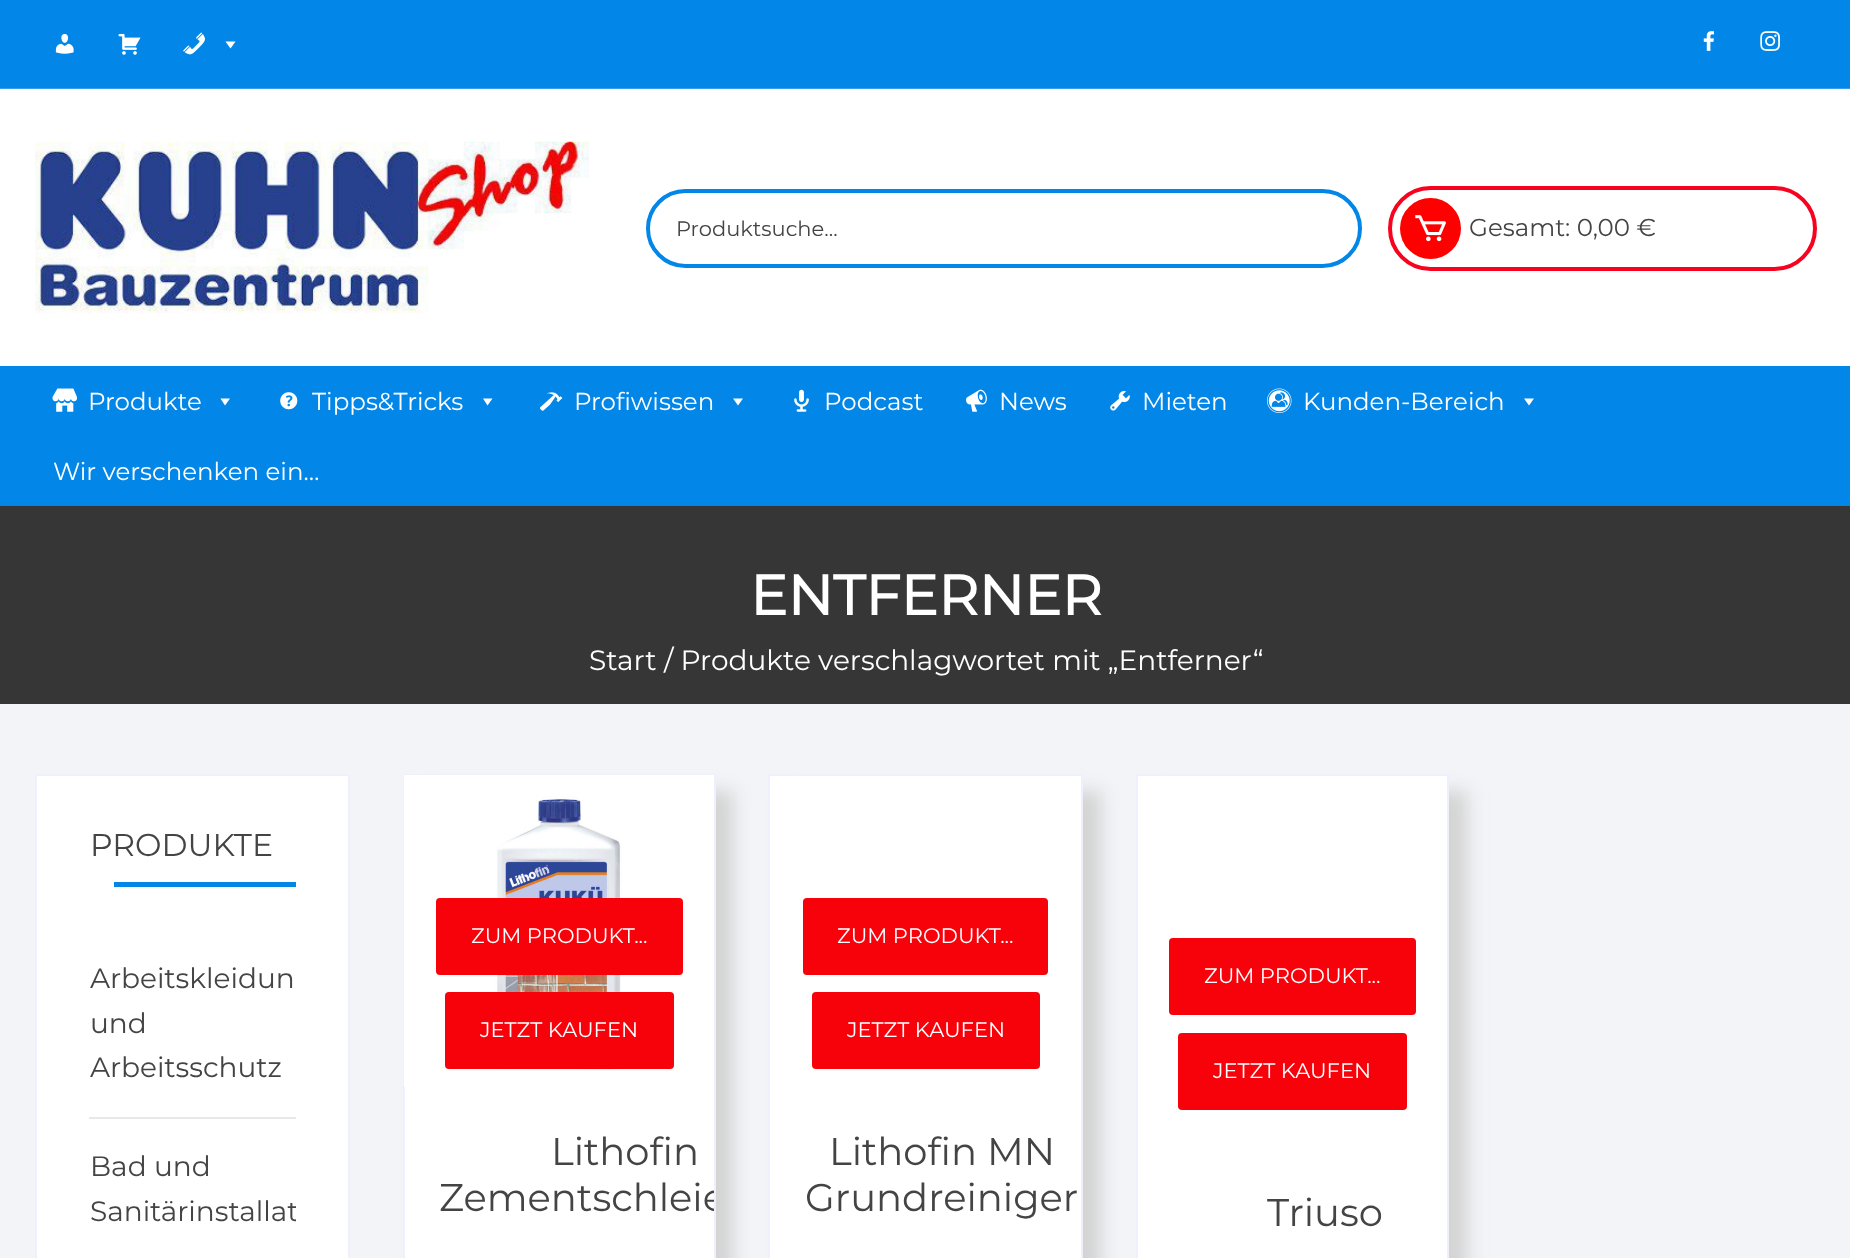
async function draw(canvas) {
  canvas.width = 1850;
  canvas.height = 1258;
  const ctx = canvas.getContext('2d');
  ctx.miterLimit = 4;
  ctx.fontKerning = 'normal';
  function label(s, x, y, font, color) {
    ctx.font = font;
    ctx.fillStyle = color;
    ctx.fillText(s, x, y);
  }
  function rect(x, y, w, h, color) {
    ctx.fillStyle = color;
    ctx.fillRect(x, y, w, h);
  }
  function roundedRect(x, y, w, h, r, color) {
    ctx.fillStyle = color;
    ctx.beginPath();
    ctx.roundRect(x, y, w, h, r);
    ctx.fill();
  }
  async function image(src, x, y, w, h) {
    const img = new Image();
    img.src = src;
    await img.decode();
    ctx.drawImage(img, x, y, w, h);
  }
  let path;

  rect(0, 0, 1850, 1258, '#f3f4f8');
  rect(0, 89, 1850, 277, '#fff');
  rect(0, 0, 1850, 88, '#0286e7');
  rect(0, 88, 1850, 1, '#359eec');
  await image('assets/img1.png', 55, 33, 19, 21);
  await image('assets/img2.png', 118, 33, 23, 22);
  await image('assets/img3.png', 183, 32, 22, 23);
  ctx.fillStyle = '#fff';
  path = new Path2D('M235.5 41.5L230.5 48.5L225.5 41.5Z');
  ctx.fill(path);
  await image('assets/img4.png', 1703, 31, 11, 20);
  await image('assets/img5.png', 1760, 31, 20, 20);
  await image('assets/img6.png', 35, 141, 554, 173);
  ctx.beginPath();
  ctx.roundRect(648, 191, 712, 75, 37.5);
  ctx.strokeStyle = '#0286e7';
  ctx.lineWidth = 4;
  ctx.stroke();
  label('Produktsuche...', 676, 236, '100 21px Montserrat', '#444');
  ctx.beginPath();
  ctx.roundRect(1390, 188, 425, 81, 40.5);
  ctx.strokeStyle = '#f7021f';
  ctx.stroke();
  ctx.fillStyle = '#f00';
  ctx.beginPath();
  ctx.arc(1430.5, 228.5, 30.5, 0, 2 * Math.PI);
  ctx.fill();
  await image('assets/img7.png', 1415, 215, 31, 27);
  label('Gesamt: 0,00 €', 1469, 236, '100 24.5px Montserrat', '#444');
  rect(0, 366, 1850, 140, '#0286e7');
  await image('assets/img8.png', 52, 388, 25, 24);
  label('Produkte', 88, 410, '100 24.5px Montserrat', '#fff');
  path = new Path2D('M230 398.5L225 405.5L220.5 398.5Z');
  ctx.fill(path);
  await image('assets/img9.png', 280, 392, 18, 18);
  label('Tipps&Tricks', 312, 410, '100 24.5px Montserrat', '#fff');
  path = new Path2D('M492.5 398.5L487.5 405.5L483 398.5Z');
  ctx.fill(path);
  await image('assets/img10.png', 540, 392, 23, 19);
  label('Profiwissen', 574, 410, '100 24.5px Montserrat', '#fff');
  path = new Path2D('M743 398.5L738 405.5L733 398.5Z');
  ctx.fill(path);
  await image('assets/img11.png', 794, 389, 15, 23);
  label('Podcast', 824, 410, '100 24.5px Montserrat', '#fff');
  await image('assets/img12.png', 966, 389, 21, 23);
  label('News', 999, 410, '100 24.5px Montserrat', '#fff');
  await image('assets/img13.png', 1110, 391, 20, 20);
  label('Mieten', 1142, 410, '100 24.5px Montserrat', '#fff');
  await image('assets/img14.png', 1267, 388, 25, 25);
  label('Kunden-Bereich', 1303, 410, '100 24.5px Montserrat', '#fff');
  path = new Path2D('M1534 398.5L1529 405.5L1524 398.5Z');
  ctx.fill(path);
  label('Wir verschenken ein…', 53, 480, '100 24.5px Montserrat', '#fff');
  rect(0, 506, 1850, 198, '#363636');
  label('ENTFERNER', 750, 615, 'bold 56px Montserrat', '#fff');
  label('Start / Produkte verschlagwortet mit „Entferner“', 589, 670, '100 28px Montserrat', '#fff');
  ctx.beginPath();
  ctx.rect(36, 775, 313, 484);
  ctx.fill();
  ctx.strokeStyle = '#eef1fd';
  ctx.lineWidth = 2;
  ctx.stroke();
  label('PRODUKTE', 90, 856, '100 31.5px Montserrat', '#444');
  rect(114, 882, 182, 5, '#0286e7');
  rect(89, 1117, 207, 2, '#e8e8e8');
  label('Arbeitskleidun', 90, 988, '100 28px Montserrat', '#444');
  label('und', 90, 1033, '100 28px Montserrat', '#444');
  label('Arbeitsschutz', 90, 1077, '100 28px Montserrat', '#444');
  label('Bad und', 90, 1176, '100 28px Montserrat', '#444');
  ctx.save();
  ctx.beginPath();
  ctx.rect(89, 956, 207, 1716);
  ctx.clip();
  label('Sanitärinstallat', 90, 1221, '100 28px Montserrat', '#444');
  ctx.restore();
  ctx.fillStyle = '#d3d3d3';
  ctx.filter = 'blur(9px)';
  ctx.beginPath();
  ctx.rect(420, 791, 313, 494);
  ctx.fill();
  ctx.filter = 'none';
  rect(405, 1087, 309, 171, '#fff');
  ctx.strokeRect(404, 775, 311, 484);
  rect(404, 775, 310, 312, '#fff');
  await image('assets/img15.png', 495, 796, 127, 274);
  roundedRect(436, 898, 247, 77, 4, '#f7020a');
  label('ZUM PRODUKT...', 471, 943, '100 21px Montserrat', '#fff');
  roundedRect(445, 992, 229, 77, 4, '#f7020a');
  label('JETZT KAUFEN', 480, 1037, '100 21px Montserrat', '#fff');
  label('Lithofin', 551, 1165, '100 38.5px Montserrat', '#444');
  ctx.save();
  ctx.beginPath();
  ctx.rect(439, 1131, 275, 92);
  ctx.clip();
  label('Zementschleie', 439, 1211, '100 38.5px Montserrat', '#444');
  ctx.restore();
  ctx.fillStyle = '#d3d3d3';
  ctx.filter = 'blur(9px)';
  ctx.beginPath();
  ctx.rect(786, 791, 315, 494);
  ctx.fill();
  ctx.filter = 'none';
  ctx.fillStyle = '#fff';
  ctx.beginPath();
  ctx.rect(769, 775, 313, 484);
  ctx.fill();
  ctx.stroke();
  roundedRect(803, 898, 245, 77, 4, '#f7020a');
  label('ZUM PRODUKT...', 837, 943, '100 21px Montserrat', '#fff');
  roundedRect(812, 992, 228, 77, 4, '#f7020a');
  label('JETZT KAUFEN', 847, 1037, '100 21px Montserrat', '#fff');
  label('Lithofin MN', 829, 1165, '100 38.5px Montserrat', '#444');
  label('Grundreiniger', 805, 1211, '100 38.5px Montserrat', '#444');
  ctx.fillStyle = '#d3d3d3';
  ctx.filter = 'blur(9px)';
  ctx.beginPath();
  ctx.rect(1153, 791, 314, 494);
  ctx.fill();
  ctx.filter = 'none';
  ctx.fillStyle = '#fff';
  ctx.beginPath();
  ctx.rect(1137, 775, 311, 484);
  ctx.fill();
  ctx.stroke();
  roundedRect(1169, 938, 247, 77, 4, '#f7020a');
  label('ZUM PRODUKT...', 1204, 983, '100 21px Montserrat', '#fff');
  roundedRect(1178, 1033, 229, 77, 4, '#f7020a');
  label('JETZT KAUFEN', 1213, 1078, '100 21px Montserrat', '#fff');
  label('Triuso', 1267, 1226, '100 38.5px Montserrat', '#444');
}

draw(document.querySelector('canvas'));
